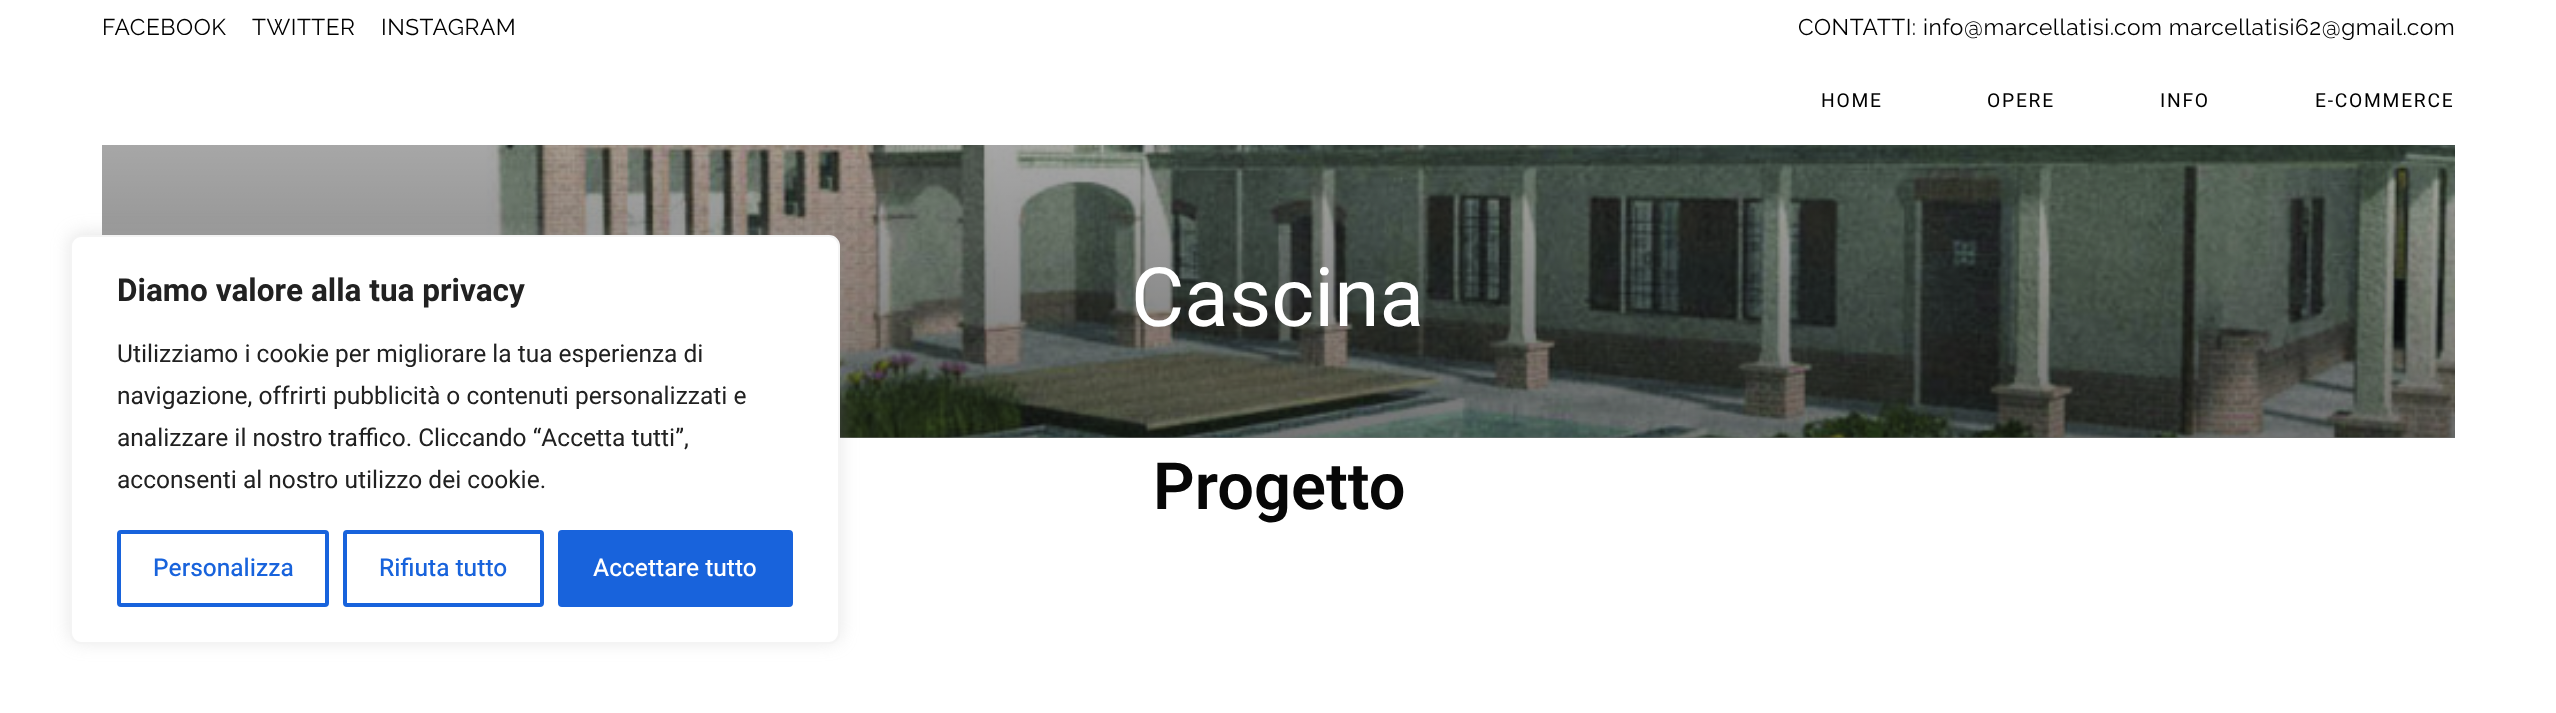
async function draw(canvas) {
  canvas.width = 2556;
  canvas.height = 713;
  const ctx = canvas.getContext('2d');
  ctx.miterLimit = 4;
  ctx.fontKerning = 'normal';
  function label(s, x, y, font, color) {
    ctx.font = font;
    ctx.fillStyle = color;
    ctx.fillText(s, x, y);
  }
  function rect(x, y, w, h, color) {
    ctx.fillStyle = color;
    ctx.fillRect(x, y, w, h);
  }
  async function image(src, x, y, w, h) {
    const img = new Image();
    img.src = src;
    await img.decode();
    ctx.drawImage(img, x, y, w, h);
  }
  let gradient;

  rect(0, 0, 2556, 713, '#fff');
  ctx.letterSpacing = '0.53px';
  label('FACEBOOK', 102, 35, '22.75px Raleway', '#000');
  label('TWITTER', 252, 35, '22.75px Raleway', '#000');
  label('INSTAGRAM', 381, 35, '22.75px Raleway', '#000');
  label('CONTATTI: info@marcellatisi.com marcellatisi62@gmail.com', 1798, 35, '22.75px Raleway', '#000');
  ctx.letterSpacing = '1.75px';
  label('HOME', 1821, 107, '19.25px Heebo', '#000');
  label('OPERE', 1987, 107, '19.25px Heebo', '#000');
  label('INFO', 2160, 107, '19.25px Heebo', '#000');
  label('E-COMMERCE', 2315, 107, '19.25px Heebo', '#000');
  await image('assets/img1.png', 102, 145, 2353, 293);
  gradient = ctx.createLinearGradient(1278, 0, 1278, 438);
  gradient.addColorStop(0, '#00000040');
  gradient.addColorStop(1, '#0000008a');
  ctx.fillStyle = gradient;
  ctx.fillRect(102, 145, 2353, 293);
  ctx.letterSpacing = '0px';
  label('Cascina', 1131, 326, '82px Roboto', '#fff');
  label('Progetto', 1153, 509, '600 65px Roboto', '#070707');
  ctx.fillStyle = '#acabab4d';
  ctx.filter = 'blur(9px)';
  ctx.beginPath();
  ctx.roundRect(70, 233, 770, 409, 11);
  ctx.fill();
  ctx.filter = 'none';
  ctx.fillStyle = '#fff';
  ctx.beginPath();
  ctx.roundRect(71, 236, 768, 407, 10);
  ctx.fill();
  ctx.strokeStyle = '#f4f4f4';
  ctx.lineWidth = 2;
  ctx.stroke();
  label('Diamo valore alla tua privacy', 117, 301, 'bold 31.5px Heebo', '#212121');
  label('Utilizziamo i cookie per migliorare la tua esperienza di', 117, 362, '24.5px Heebo', '#212121');
  label('navigazione, offrirti pubblicità o contenuti personalizzati e', 117, 404, '24.5px Heebo', '#212121');
  label('analizzare il nostro traffico. Cliccando “Accetta tutti”,', 117, 446, '24.5px Heebo', '#212121');
  label('acconsenti al nostro utilizzo dei cookie.', 117, 488, '24.5px Heebo', '#212121');
  ctx.beginPath();
  ctx.roundRect(119, 532, 208, 73, 2);
  ctx.strokeStyle = '#1863dc';
  ctx.lineWidth = 4;
  ctx.stroke();
  label('Personalizza', 153, 576, '500 24.5px Heebo', '#1863dc');
  ctx.beginPath();
  ctx.roundRect(345, 532, 197, 73, 2);
  ctx.stroke();
  label('Rifiuta tutto', 379, 576, '500 24.5px Heebo', '#1863dc');
  ctx.beginPath();
  ctx.roundRect(560, 532, 231, 73, 2);
  ctx.fill();
  ctx.stroke();
  label('Accettare tutto', 593, 576, '500 24.5px Heebo', '#fff');
}

draw(document.querySelector('canvas'));
